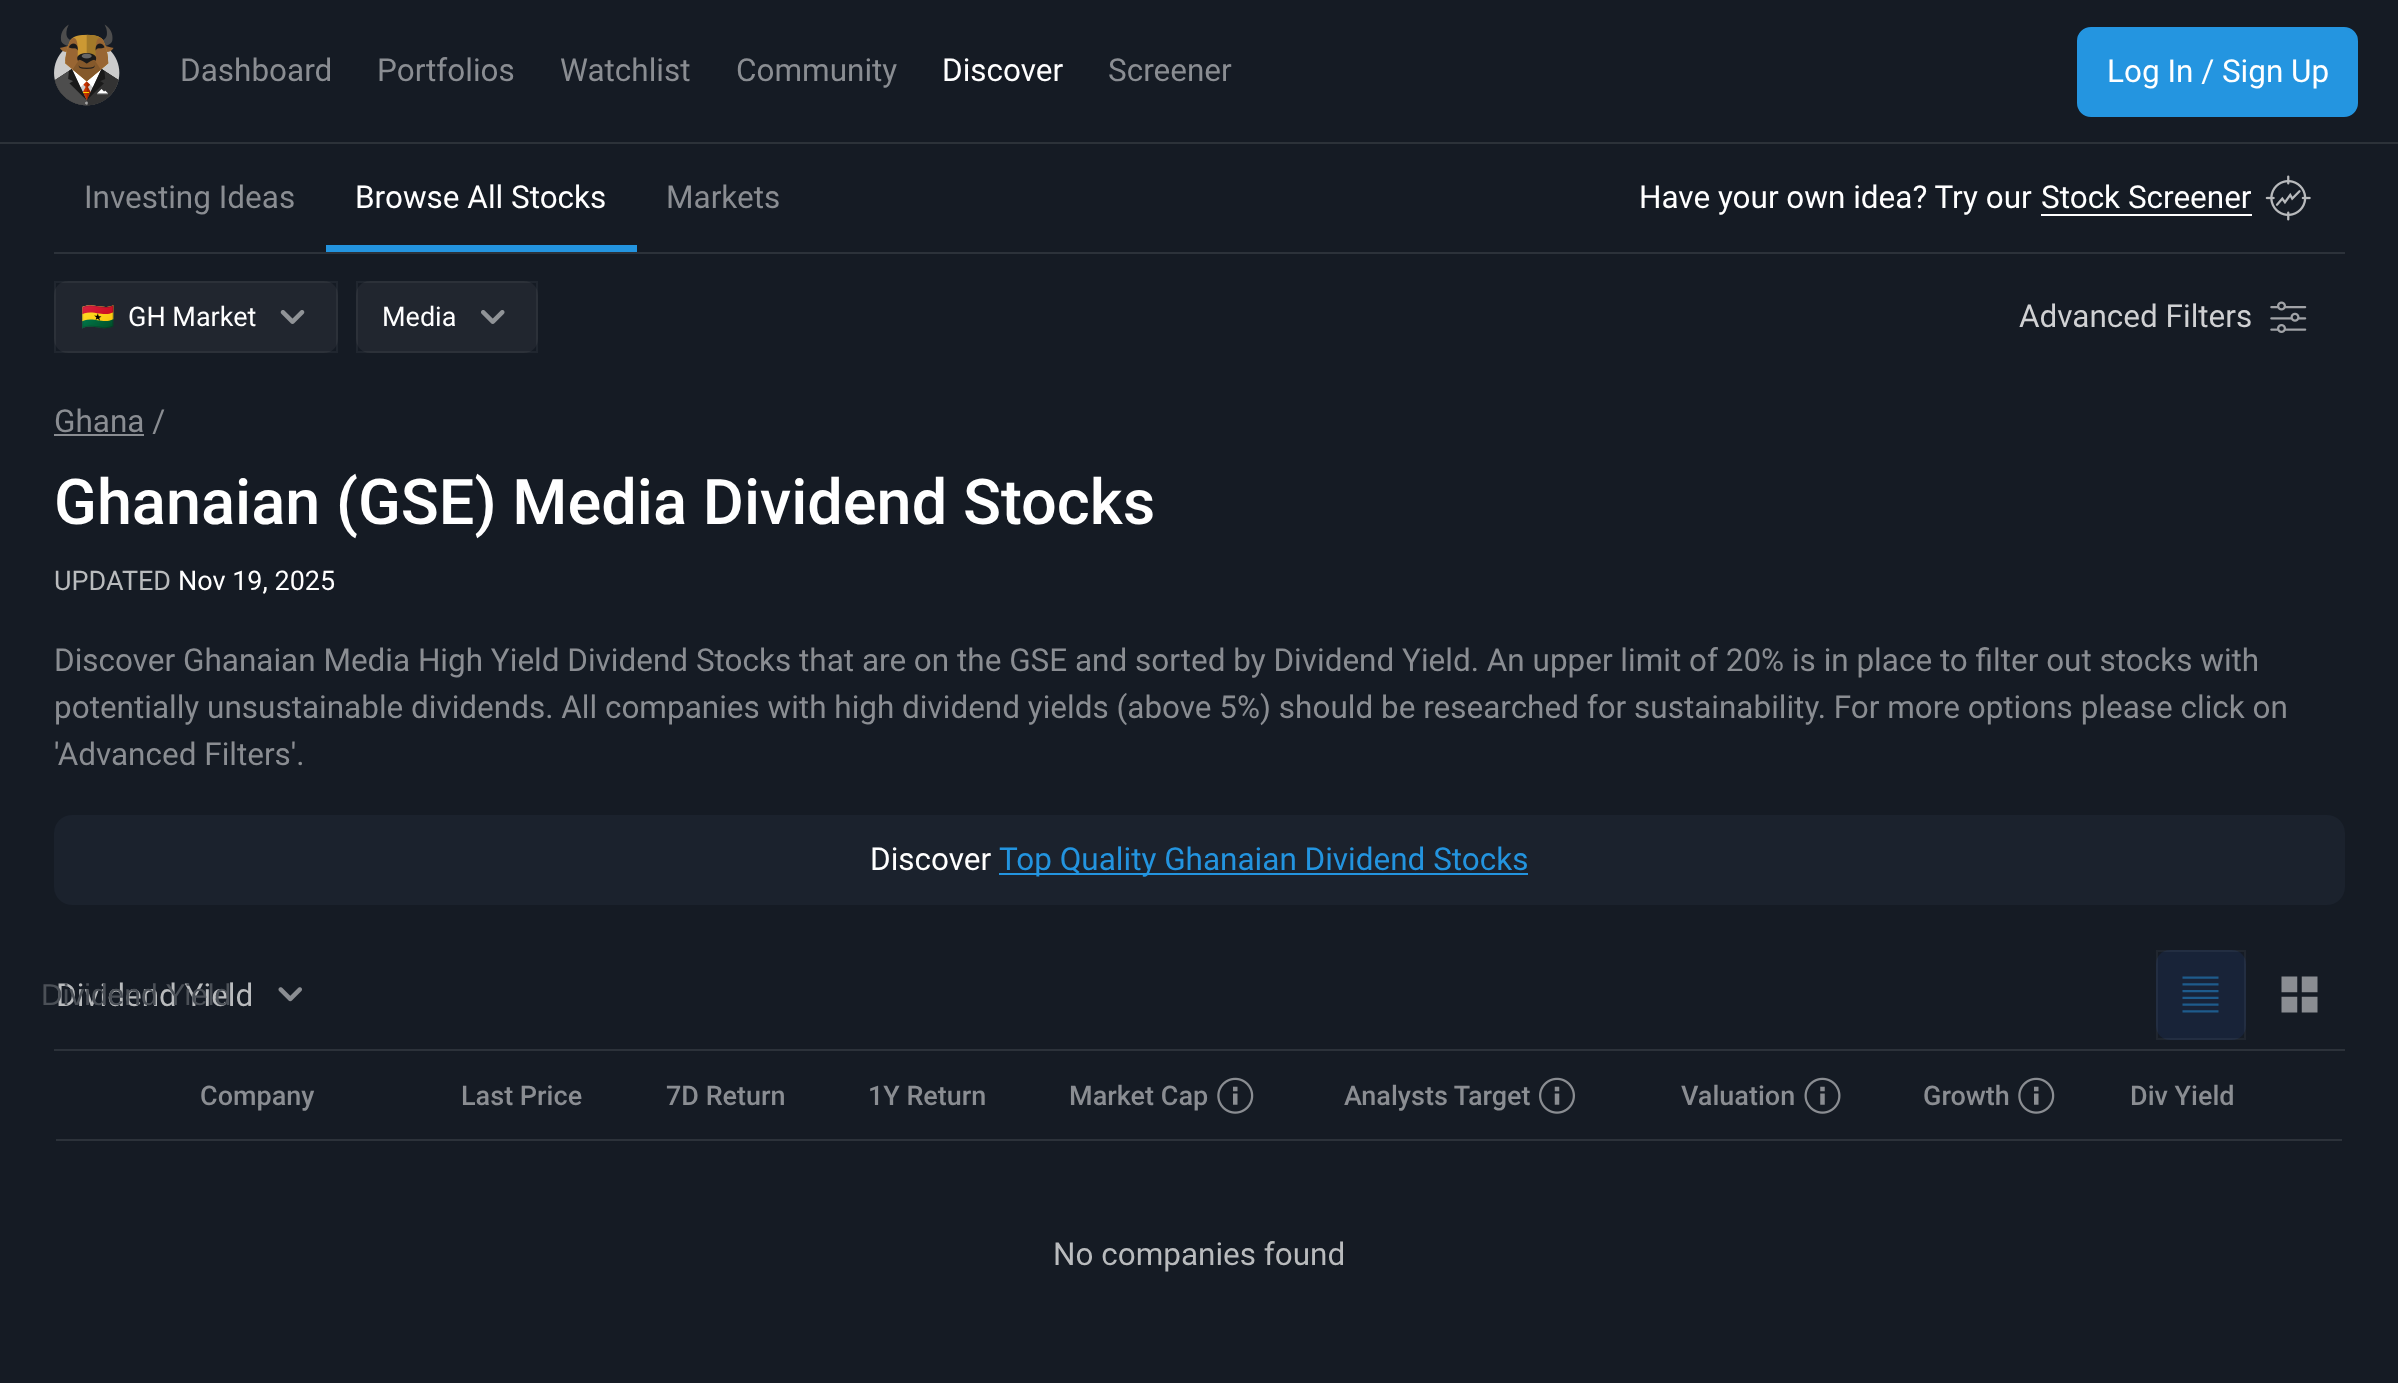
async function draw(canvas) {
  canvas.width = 2398;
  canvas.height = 1383;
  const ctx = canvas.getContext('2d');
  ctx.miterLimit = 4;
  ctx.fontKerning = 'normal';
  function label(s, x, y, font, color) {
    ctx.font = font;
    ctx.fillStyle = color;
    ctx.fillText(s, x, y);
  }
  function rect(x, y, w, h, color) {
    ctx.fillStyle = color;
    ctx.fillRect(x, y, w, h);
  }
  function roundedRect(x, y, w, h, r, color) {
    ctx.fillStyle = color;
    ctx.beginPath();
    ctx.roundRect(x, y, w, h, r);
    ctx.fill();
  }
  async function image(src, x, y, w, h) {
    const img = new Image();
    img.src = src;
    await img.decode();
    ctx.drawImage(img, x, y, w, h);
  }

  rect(0, 0, 2398, 1383, '#151b24');
  rect(0, 142, 2398, 2, '#2c3239');
  await image('assets/img1.png', 54, 24, 66, 82);
  label('Dashboard', 180, 81, '31.5px Roboto', '#8a8d92');
  label('Portfolios', 377, 81, '31.5px Roboto', '#8a8d92');
  label('Watchlist', 560, 81, '31.5px Roboto', '#8a8d92');
  label('Community', 736, 81, '31.5px Roboto', '#8a8d92');
  label('Discover', 942, 81, '31.5px Roboto', '#fff');
  label('Screener', 1108, 81, '31.5px Roboto', '#8a8d92');
  ctx.fillStyle = '#2495e0';
  ctx.beginPath();
  ctx.roundRect(2078, 28, 279, 88, 13);
  ctx.fill();
  ctx.strokeStyle = '#2495e0';
  ctx.lineWidth = 2;
  ctx.stroke();
  label('Log In / Sign Up', 2107, 82, '31.5px Roboto', '#fff');
  rect(54, 252, 2291, 2, '#2c323a');
  label('Investing Ideas', 84, 208, '31.5px Roboto', '#8a8d92');
  rect(326, 245, 311, 7, '#2394df');
  label('Browse All Stocks', 355, 208, '31.5px Roboto', '#fff');
  label('Markets', 666, 208, '31.5px Roboto', '#8a8d92');
  label('Have your own idea? Try our', 1639, 208, '31.5px Roboto', '#fff');
  label('Stock Screener', 2041, 208, '31.5px Roboto', '#fff');
  rect(2041, 214, 211, 2, '#fff');
  await image('assets/img2.png', 2265, 175, 46, 46);
  rect(54, 1049, 2291, 2, '#2c323a');
  roundedRect(54, 281, 284, 72, 14, '#21262f');
  ctx.strokeStyle = '#ffffff0d';
  ctx.strokeRect(55, 282, 282, 70);
  label('🇬🇭', 81, 326, '27px Noto Color Emoji', '#fff');
  label('GH Market', 128, 326, '27px Roboto', '#fff');
  await image('assets/img3.png', 280, 310, 25, 14);
  roundedRect(356, 281, 182, 72, 14, '#21262f');
  ctx.strokeRect(357, 282, 180, 70);
  label('Media', 382, 326, '27px Roboto', '#fff');
  await image('assets/img4.png', 481, 310, 24, 14);
  label('Advanced Filters', 2019, 327, '31.5px Roboto', '#d0d1d3');
  await image('assets/img5.png', 2270, 301, 37, 32);
  label('Ghana /', 54, 432, '31.5px Roboto', '#8a8d92');
  rect(54, 434, 90, 2, '#8a8d92');
  label('Ghanaian (GSE) Media Dividend Stocks', 54, 524, '500 63px Roboto', '#fff');
  label('UPDATED', 54, 590, '27px Roboto', '#b9bbbd');
  label('Nov 19, 2025', 178, 590, '27px Roboto', '#fff');
  label('Discover Ghanaian Media High Yield Dividend Stocks that are on the GSE and sorted by Dividend Yield. An upper limit of 20% is in place to filter out stocks with', 54, 671, '31.5px Roboto', '#8a8d92');
  label('potentially unsustainable dividends. All companies with high dividend yields (above 5%) should be researched for sustainability. For more options please click on', 54, 718, '31.5px Roboto', '#8a8d92');
  label('\'Advanced Filters\'.', 54, 765, '31.5px Roboto', '#8a8d92');
  roundedRect(54, 815, 2291, 90, 18, '#1b222d');
  label('Discover', 870, 870, '31.5px Roboto', '#fff');
  rect(999, 873, 529, 2, '#2394df');
  label('Top Quality Ghanaian Dividend Stocks', 999, 870, '31.5px Roboto', '#2394df');
  label('Dividend Yield', 56, 1006, '31.5px Roboto', '#b9bbbd');
  await image('assets/img6.png', 278, 987, 24, 15);
  label('Dividend Yield', 41, 1005, '30px Liberation Sans', '#4b5057');
  roundedRect(2156, 950, 90, 90, 14, '#182338');
  ctx.strokeRect(2157, 951, 88, 88);
  await image('assets/img7.png', 2182, 976, 37, 37);
  await image('assets/img8.png', 2281, 976, 37, 37);
  label('Company', 200, 1105, '500 27px Roboto', '#8a8d92');
  label('Last Price', 461, 1105, '500 27px Roboto', '#8a8d92');
  label('7D Return', 666, 1105, '500 27px Roboto', '#8a8d92');
  label('1Y Return', 868, 1105, '500 27px Roboto', '#8a8d92');
  label('Market Cap', 1069, 1105, '500 27px Roboto', '#8a8d92');
  await image('assets/img9.png', 1217, 1077, 37, 37);
  label('Analysts Target', 1344, 1105, '500 27px Roboto', '#8a8d92');
  await image('assets/img10.png', 1539, 1077, 36, 37);
  label('Valuation', 1681, 1105, '500 27px Roboto', '#8a8d92');
  await image('assets/img11.png', 1804, 1077, 37, 37);
  label('Growth', 1923, 1105, '500 27px Roboto', '#8a8d92');
  await image('assets/img9.png', 2018, 1077, 37, 37);
  label('Div Yield', 2130, 1105, '500 27px Roboto', '#8a8d92');
  rect(56, 1139, 2286, 2, '#2c323a');
  label('No companies found', 1053, 1265, '31.5px Roboto', '#b9bbbd');
}

draw(document.querySelector('canvas'));
